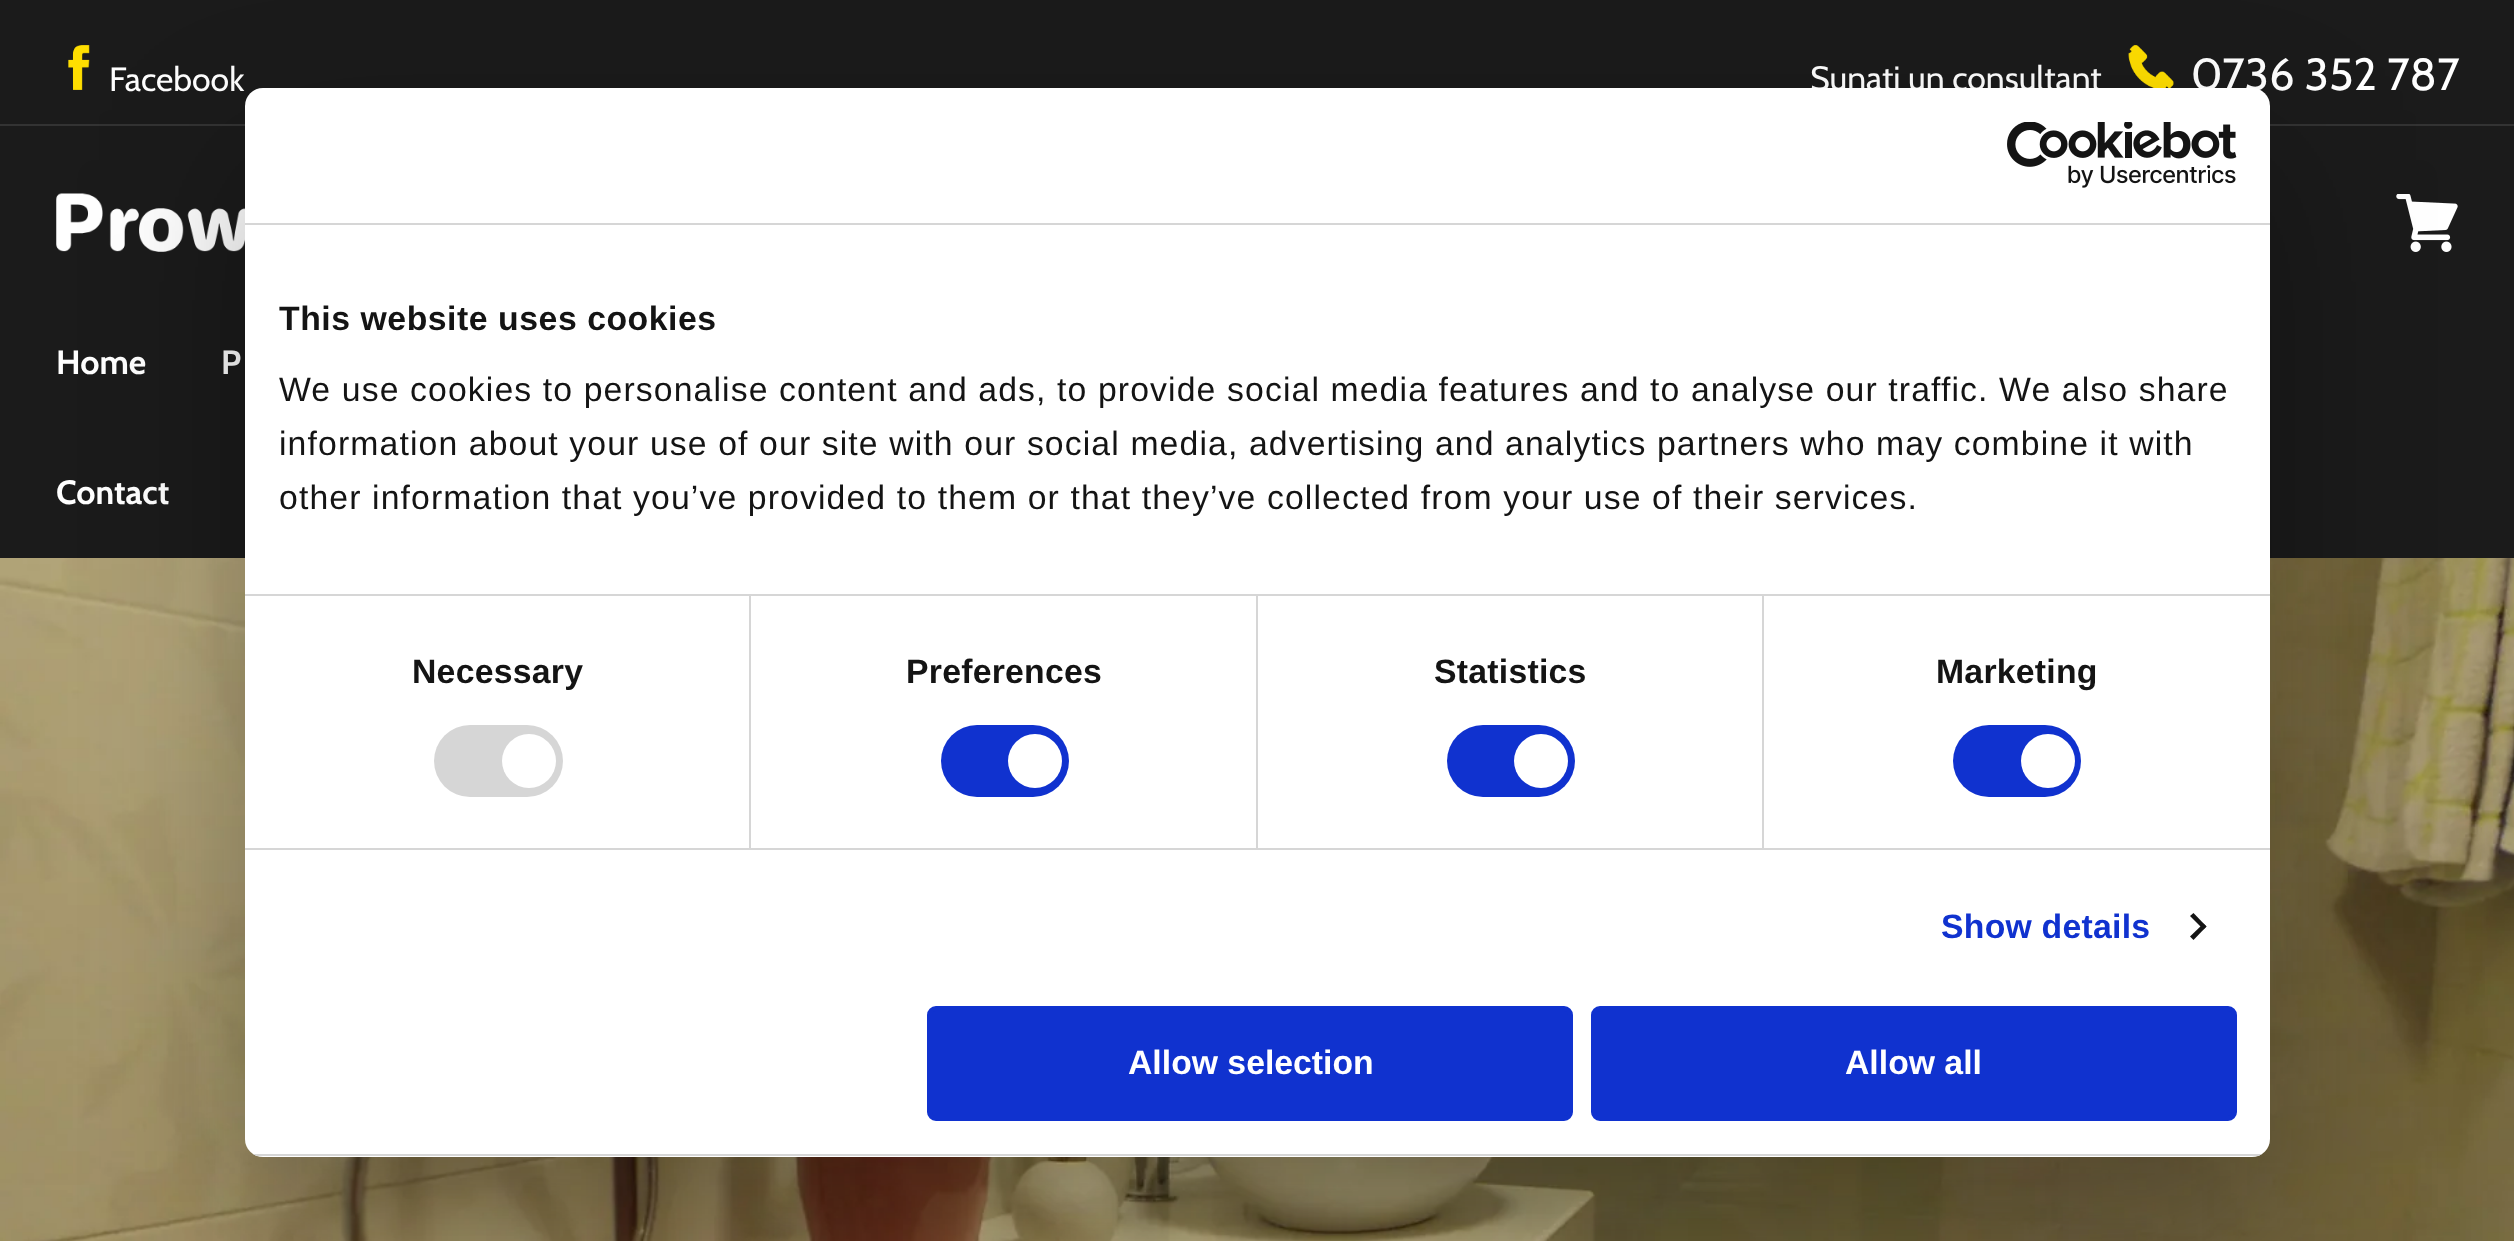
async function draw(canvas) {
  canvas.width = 2514;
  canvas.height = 1241;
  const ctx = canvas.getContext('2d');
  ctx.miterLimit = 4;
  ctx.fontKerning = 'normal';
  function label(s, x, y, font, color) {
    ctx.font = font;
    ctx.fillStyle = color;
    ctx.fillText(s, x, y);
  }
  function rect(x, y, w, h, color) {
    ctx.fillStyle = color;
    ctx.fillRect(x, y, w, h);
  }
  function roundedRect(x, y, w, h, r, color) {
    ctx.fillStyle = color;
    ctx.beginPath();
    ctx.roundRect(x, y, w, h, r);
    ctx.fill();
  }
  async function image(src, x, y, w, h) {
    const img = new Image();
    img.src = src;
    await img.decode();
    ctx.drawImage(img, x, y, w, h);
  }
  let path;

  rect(0, 0, 2514, 1241, '#fff');
  rect(0, 0, 2514, 558, '#1b1b1b');
  rect(0, 124, 2514, 2, '#333');
  await image('assets/img1.png', 68, 45, 22, 45);
  label('Facebook', 109, 91, '33.75px Cabin', '#fff');
  label('Sunati un consultant', 1810, 90, '33.75px Cabin', '#fff');
  await image('assets/img2.png', 2128, 45, 46, 43);
  label('0736 352 787', 2191, 90, '45px Cabin', '#fff');
  await image('assets/img3.png', 56, 193, 189, 59);
  await image('assets/img4.png', 2396, 194, 62, 58);
  label('Home', 56, 374, 'bold 33.75px Cabin', '#fff');
  label('P', 221, 374, 'bold 33.75px Cabin', '#fff');
  label('Contact', 56, 504, 'bold 33.75px Cabin', '#fff');
  await image('assets/img6.png', 0, 558, 2514, 683);
  ctx.fillStyle = '#0000004d';
  ctx.filter = 'blur(76.5px)';
  ctx.beginPath();
  ctx.roundRect(245, 160, 2025, 1069, 18);
  ctx.fill();
  ctx.filter = 'none';
  roundedRect(245, 88, 2025, 1069, 18, '#fff');
  rect(245, 223, 2025, 2, '#d6d6d6');
  await image('assets/img5.png', 2007, 122, 230, 66);
  rect(245, 594, 2025, 2, '#d6d6d6');
  ctx.letterSpacing = '0.55px';
  label('This website uses cookies', 279, 330, 'bold 33.75px Liberation Sans', '#141414');
  ctx.letterSpacing = '1.12px';
  label('We use cookies to personalise content and ads, to provide social media features and to analyse our traffic. We also share', 279, 401, '33.75px Liberation Sans', '#141414');
  label('information about your use of our site with our social media, advertising and analytics partners who may combine it with', 279, 455, '33.75px Liberation Sans', '#141414');
  label('other information that you’ve provided to them or that they’ve collected from your use of their services.', 279, 509, '33.75px Liberation Sans', '#141414');
  rect(245, 848, 2025, 2, '#d6d6d6');
  rect(749, 596, 2, 252, '#d6d6d6');
  ctx.letterSpacing = '0.25px';
  label('Necessary', 412, 683, 'bold 33.75px Liberation Sans', '#141414');
  roundedRect(434, 725, 129, 72, 36, '#d6d6d6');
  ctx.fillStyle = '#fff';
  ctx.beginPath();
  ctx.arc(529, 761, 27, 0, 2 * Math.PI);
  ctx.fill();
  rect(1256, 596, 2, 252, '#d6d6d6');
  label('Preferences', 906, 683, 'bold 33.75px Liberation Sans', '#141414');
  roundedRect(941, 725, 128, 72, 36, '#1032cf');
  ctx.fillStyle = '#fff';
  ctx.beginPath();
  ctx.arc(1035, 761, 27, 0, 2 * Math.PI);
  ctx.fill();
  rect(1762, 596, 2, 252, '#d6d6d6');
  label('Statistics', 1434, 683, 'bold 33.75px Liberation Sans', '#141414');
  roundedRect(1447, 725, 128, 72, 36, '#1032cf');
  ctx.fillStyle = '#fff';
  ctx.beginPath();
  ctx.arc(1541, 761, 27, 0, 2 * Math.PI);
  ctx.fill();
  label('Marketing', 1936, 683, 'bold 33.75px Liberation Sans', '#141414');
  roundedRect(1953, 725, 128, 72, 36, '#1032cf');
  ctx.fillStyle = '#fff';
  ctx.beginPath();
  ctx.arc(2048, 761, 27, 0, 2 * Math.PI);
  ctx.fill();
  label('Show details', 1941, 938, 'bold 33.75px Liberation Sans', '#1032cf');
  ctx.fillStyle = '#141414';
  path = new Path2D('M2193.5 913L2206.5 926.5L2203.5 929.5L2190 916Z');
  ctx.fill(path);
  path = new Path2D('M2203.5 923.5L2206.5 926.5L2193.5 940L2190 936.5Z');
  ctx.fill(path);
  ctx.save();
  ctx.beginPath();
  ctx.roundRect(245, 88, 2025, 1069, 18);
  ctx.clip();
  rect(245, 1154, 2025, 2, '#d6d6d6');
  ctx.restore();
  ctx.fillStyle = '#1032cf';
  ctx.beginPath();
  ctx.roundRect(929.5, 1008.5, 641, 110, 6.5);
  ctx.fill();
  ctx.strokeStyle = '#1032cf';
  ctx.lineWidth = 5;
  ctx.stroke();
  ctx.letterSpacing = '0px';
  label('Allow selection', 1128, 1074, 'bold 33.75px Liberation Sans', '#fff');
  ctx.fillStyle = '#1032cf';
  ctx.beginPath();
  ctx.roundRect(1593.5, 1008.5, 641, 110, 6.5);
  ctx.fill();
  ctx.stroke();
  label('Allow all', 1845, 1074, 'bold 33.75px Liberation Sans', '#fff');
}

draw(document.querySelector('canvas'));
